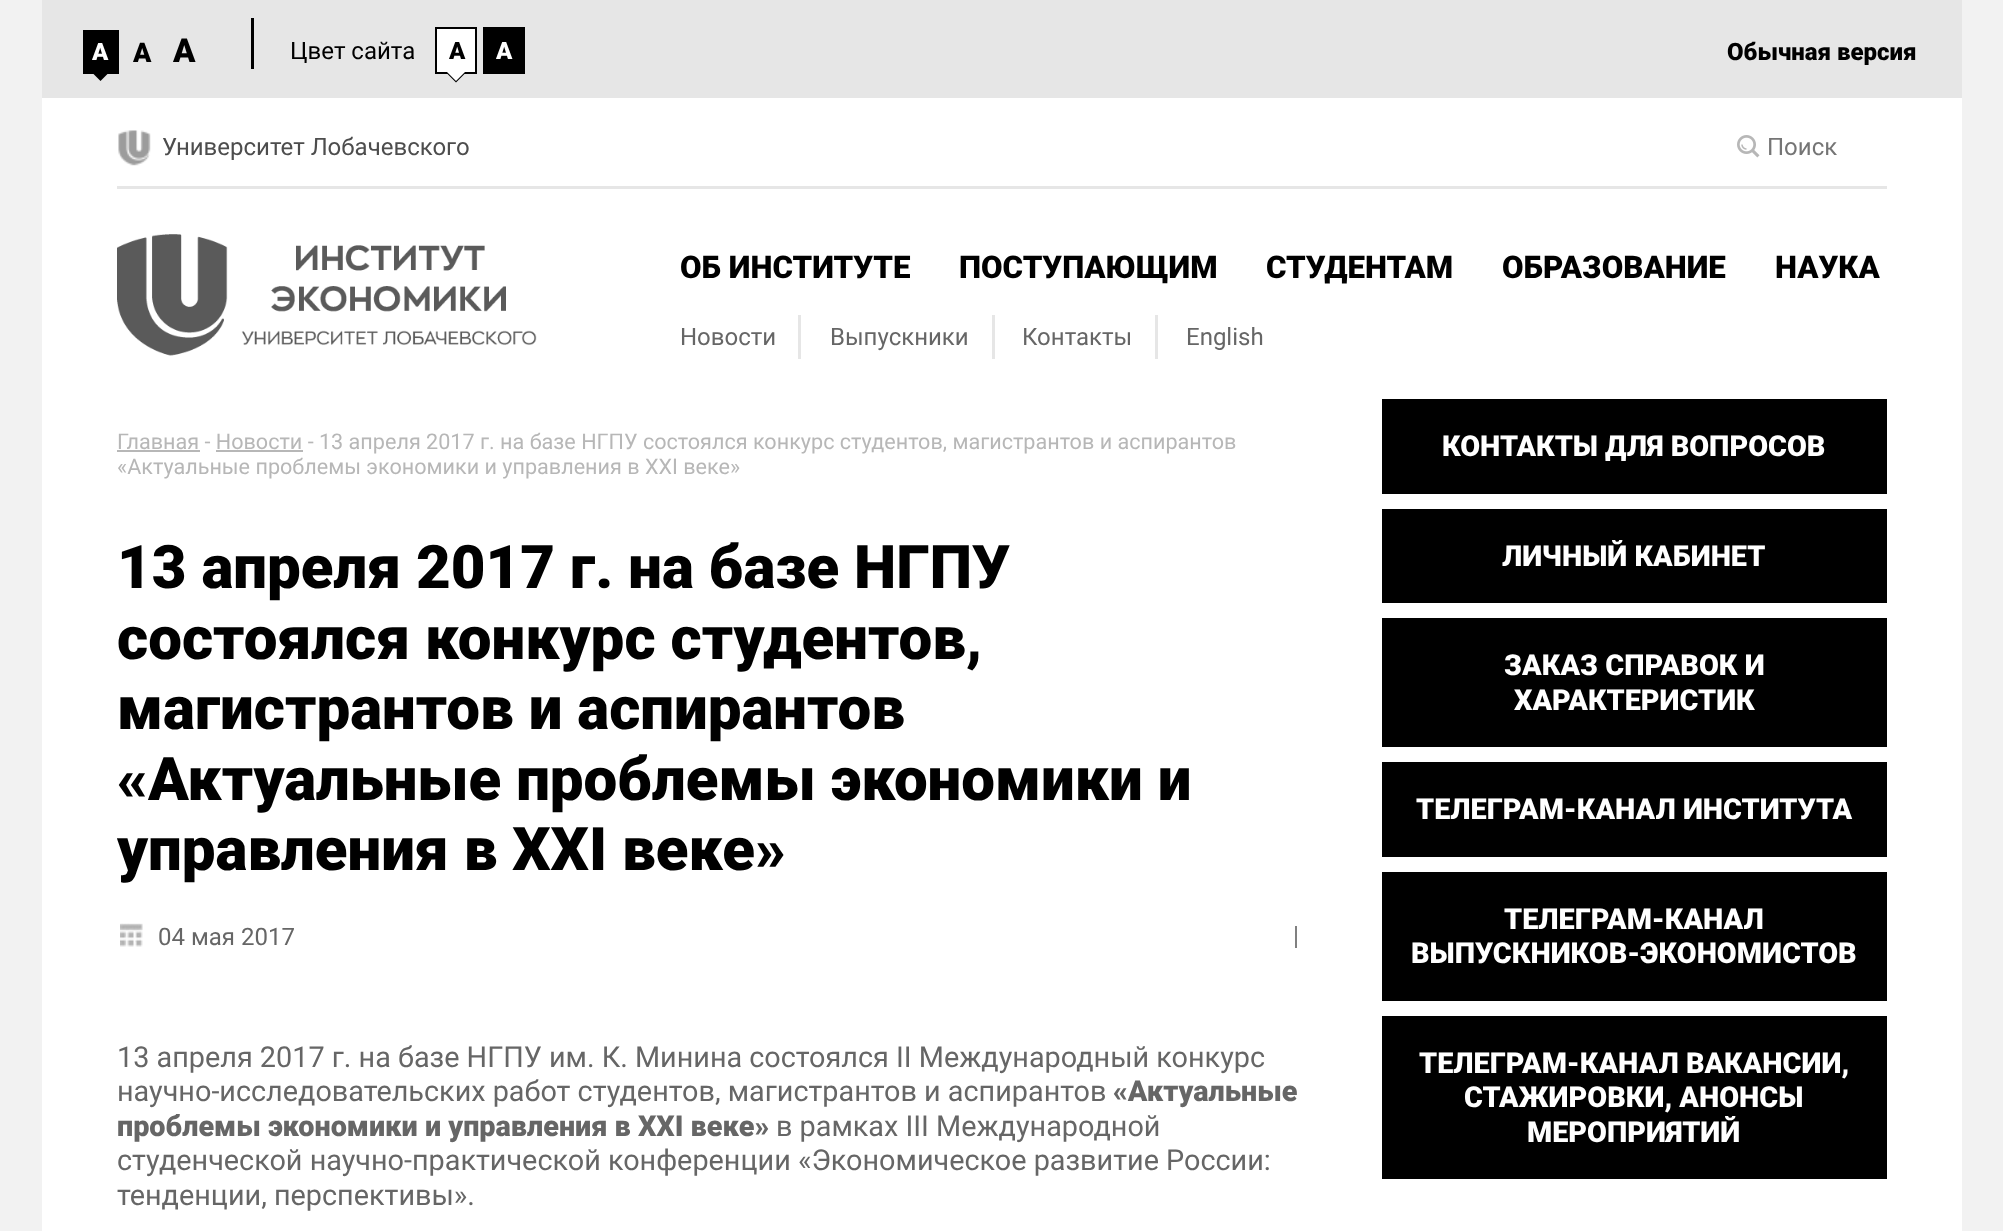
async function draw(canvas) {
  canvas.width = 2003;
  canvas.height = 1231;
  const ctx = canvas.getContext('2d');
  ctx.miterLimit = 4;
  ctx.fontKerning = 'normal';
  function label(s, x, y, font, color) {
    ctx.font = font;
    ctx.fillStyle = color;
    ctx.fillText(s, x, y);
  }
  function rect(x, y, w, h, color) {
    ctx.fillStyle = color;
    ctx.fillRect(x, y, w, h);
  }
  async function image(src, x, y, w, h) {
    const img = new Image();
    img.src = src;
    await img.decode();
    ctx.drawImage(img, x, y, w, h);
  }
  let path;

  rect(0, 0, 2003, 1231, '#f2f2f2');
  rect(42, 0, 1920, 98, '#e6e6e6');
  rect(83, 30, 36, 44, '#000');
  label('A', 92, 60, '900 24px Roboto', '#fff');
  ctx.fillStyle = '#000';
  path = new Path2D('M93 73.5H108L100.5 81Z');
  ctx.fill(path);
  label('A', 133, 62, '900 27px Roboto', '#000');
  label('A', 173, 62, '900 33px Roboto', '#000');
  rect(251, 18, 3, 51, '#000');
  label('Цвет сайта', 290, 59, '24px Roboto', '#000');
  ctx.fillStyle = '#fff';
  ctx.beginPath();
  ctx.rect(436, 28, 40, 45);
  ctx.fill();
  ctx.strokeStyle = '#000';
  ctx.lineWidth = 2;
  ctx.stroke();
  label('A', 449, 59, '900 24px Roboto', '#000');
  path = new Path2D('M447 73.5H465L456 82.5Z');
  ctx.fill(path);
  ctx.fillStyle = '#fff';
  path = new Path2D('M447 72H465L456 81Z');
  ctx.fill(path);
  rect(483, 27, 42, 47, '#000');
  label('A', 496, 59, '900 24px Roboto', '#fff');
  label('Обычная версия', 1727, 60, '900 24px Roboto', '#000');
  rect(42, 98, 1920, 301, '#fff');
  rect(117, 186, 1770, 3, '#e6e6e6');
  await image('assets/img1.png', 118, 130, 33, 36);
  label('Университет Лобачевского', 162, 155, '24px Roboto', '#4d4d4d');
  await image('assets/img2.png', 1737, 135, 23, 23);
  label('Поиск', 1767, 155, '24px Roboto', '#757575');
  await image('assets/img3.png', 117, 234, 420, 122);
  label('ОБ ИНСТИТУТЕ', 680, 278, '900 31.25px Roboto', '#000');
  label('ПОСТУПАЮЩИМ', 959, 278, '900 31.25px Roboto', '#000');
  label('СТУДЕНТАМ', 1266, 278, '900 31.25px Roboto', '#000');
  label('ОБРАЗОВАНИЕ', 1502, 278, '900 31.25px Roboto', '#000');
  label('НАУКА', 1775, 278, '900 31.25px Roboto', '#000');
  rect(798, 315, 3, 44, '#e6e6e6');
  label('Новости', 680, 345, '24px Roboto', '#666');
  rect(992, 315, 3, 44, '#e6e6e6');
  label('Выпускники', 830, 345, '24px Roboto', '#666');
  rect(1155, 315, 3, 44, '#e6e6e6');
  label('Контакты', 1022, 345, '24px Roboto', '#666');
  label('English', 1186, 345, '24px Roboto', '#666');
  rect(42, 399, 1920, 832, '#fff');
  rect(117, 450, 83, 2, '#b7b7b7');
  label('Главная - Новости - 13 апреля 2017 г. на базе НГПУ состоялся конкурс студентов, магистрантов и аспирантов', 117, 449, '21.6px Roboto', '#b7b7b7');
  rect(216, 450, 87, 2, '#b7b7b7');
  label('«Актуальные проблемы экономики и управления в XXI веке»', 117, 474, '21.6px Roboto', '#b7b7b7');
  label('13 апреля 2017 г. на базе НГПУ', 117, 588, '900 60px Roboto', '#000');
  label('состоялся конкурс студентов,', 117, 659, '900 60px Roboto', '#000');
  label('магистрантов и аспирантов', 117, 729, '900 60px Roboto', '#000');
  label('«Актуальные проблемы экономики и', 117, 800, '900 60px Roboto', '#000');
  label('управления в XXI веке»', 117, 870, '900 60px Roboto', '#000');
  await image('assets/img4.png', 120, 923, 23, 24);
  label('04 мая 2017', 158, 945, '24px Roboto', '#666');
  rect(1295, 926, 2, 22, '#808080');
  label('13 апреля 2017 г. на базе НГПУ им. К. Минина состоялся II Международный конкурс', 117, 1067, '28.8px Roboto', '#666');
  label('научно-исследовательских работ студентов, магистрантов и аспирантов', 117, 1101, '28.8px Roboto', '#666');
  label('«Актуальные', 1113, 1101, '900 28.8px Roboto', '#666');
  label('проблемы экономики и управления в XXI веке»', 117, 1136, '900 28.8px Roboto', '#666');
  label('в рамках III Международной', 776, 1136, '28.8px Roboto', '#666');
  label('студенческой научно-практической конференции «Экономическое развитие России:', 117, 1170, '28.8px Roboto', '#666');
  label('тенденции, перспективы».', 117, 1205, '28.8px Roboto', '#666');
  rect(1382, 399, 505, 95, '#000');
  label('КОНТАКТЫ ДЛЯ ВОПРОСОВ', 1442, 456, '900 28.8px Roboto', '#fff');
  rect(1382, 509, 505, 94, '#000');
  label('ЛИЧНЫЙ КАБИНЕТ', 1502, 566, '900 28.8px Roboto', '#fff');
  rect(1382, 618, 505, 129, '#000');
  label('ЗАКАЗ СПРАВОК И', 1504, 675, '900 28.8px Roboto', '#fff');
  label('ХАРАКТЕРИСТИК', 1514, 710, '900 28.8px Roboto', '#fff');
  rect(1382, 762, 505, 95, '#000');
  label('ТЕЛЕГРАМ-КАНАЛ ИНСТИТУТА', 1416, 819, '900 28.8px Roboto', '#fff');
  rect(1382, 872, 505, 129, '#000');
  label('ТЕЛЕГРАМ-КАНАЛ', 1504, 929, '900 28.8px Roboto', '#fff');
  label('ВЫПУСКНИКОВ-ЭКОНОМИСТОВ', 1411, 963, '900 28.8px Roboto', '#fff');
  rect(1382, 1016, 505, 163, '#000');
  label('ТЕЛЕГРАМ-КАНАЛ ВАКАНСИИ,', 1419, 1073, '900 28.8px Roboto', '#fff');
  label('СТАЖИРОВКИ, АНОНСЫ', 1464, 1107, '900 28.8px Roboto', '#fff');
  label('МЕРОПРИЯТИЙ', 1527, 1142, '900 28.8px Roboto', '#fff');
}

draw(document.querySelector('canvas'));
